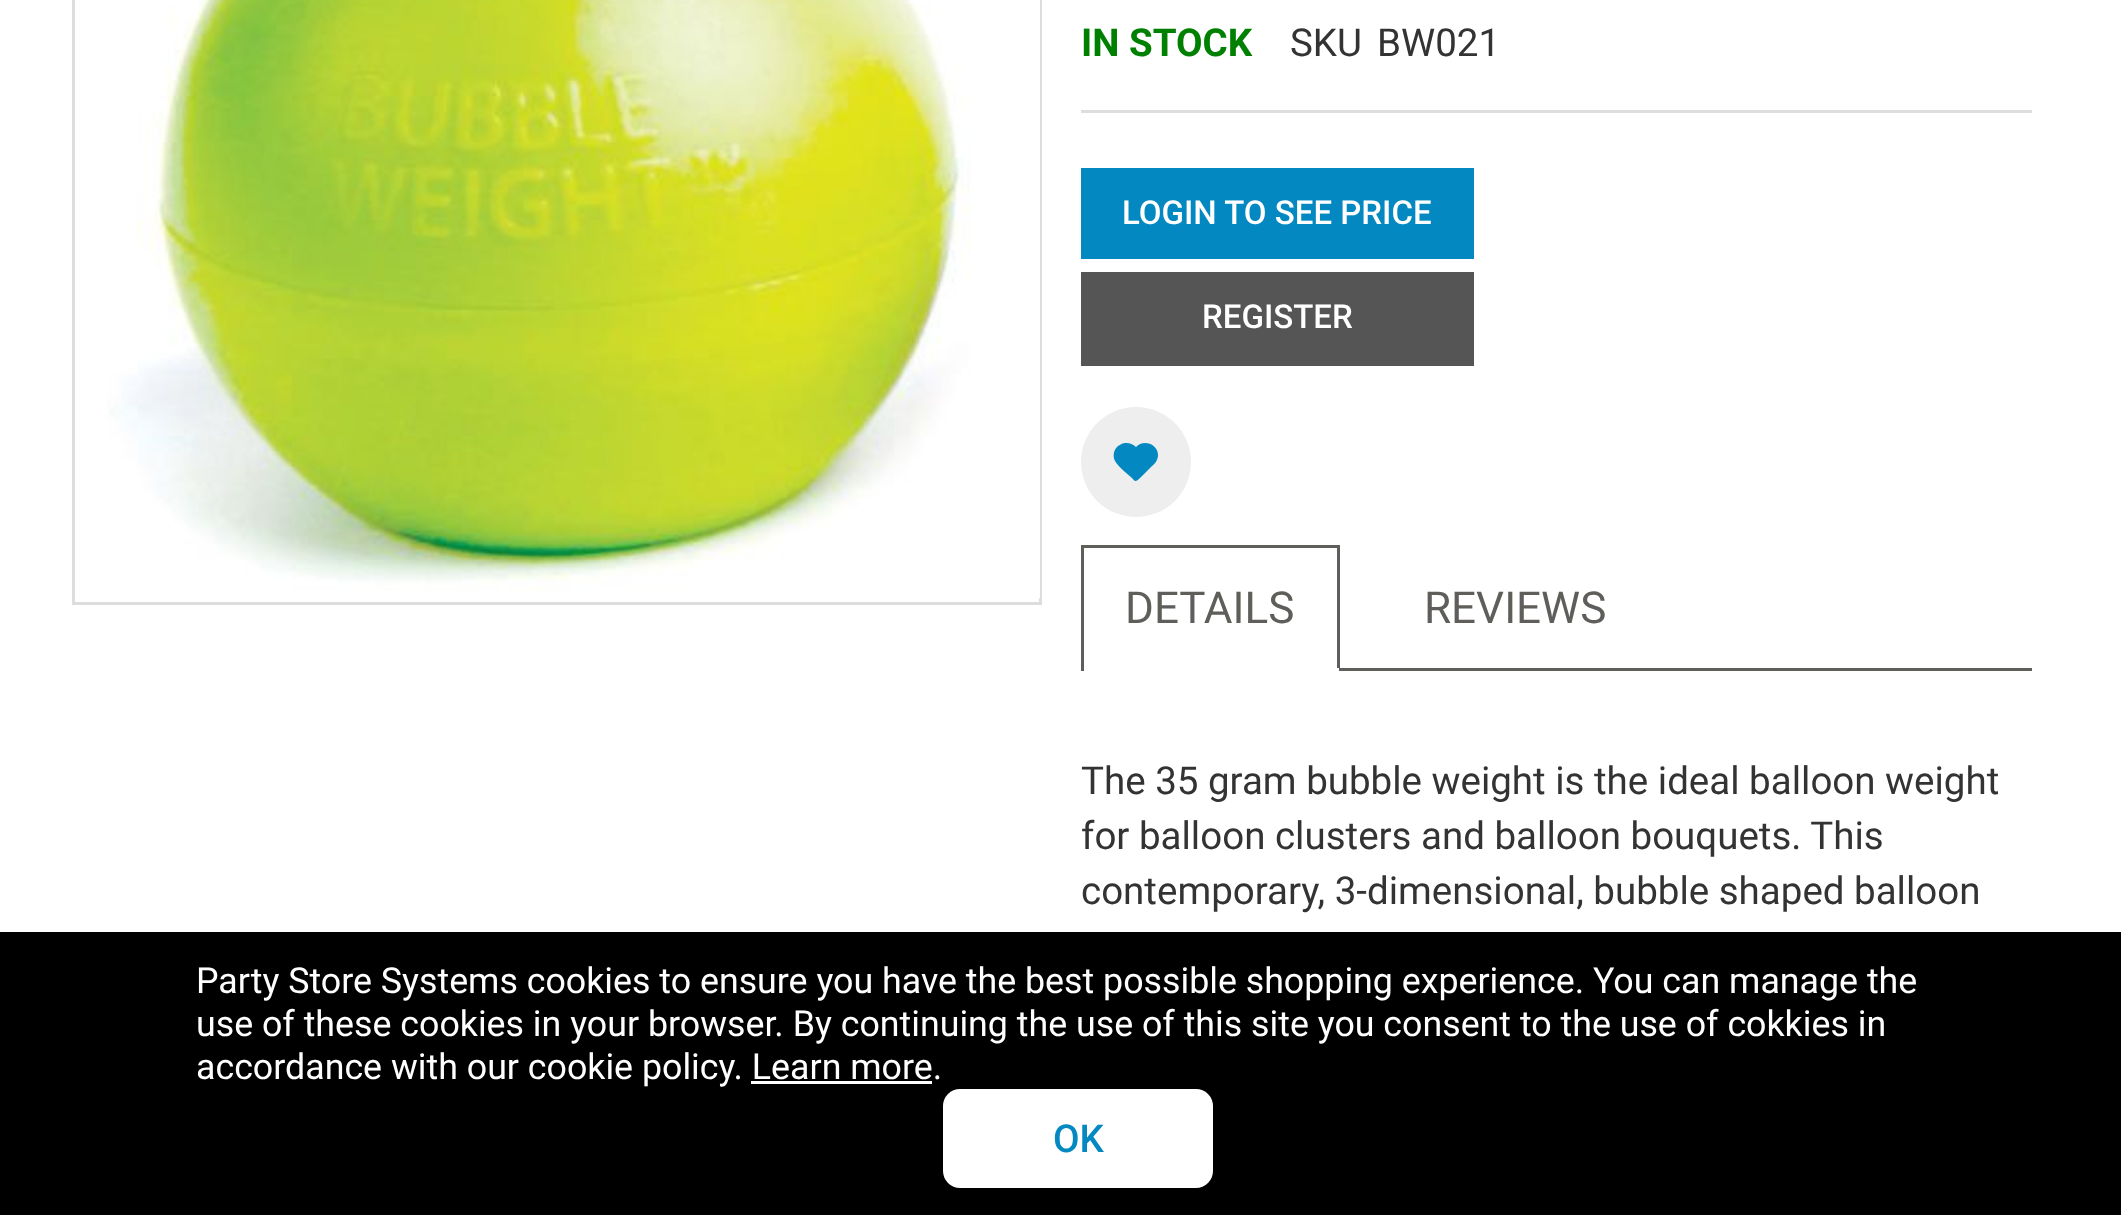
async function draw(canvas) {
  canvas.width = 2121;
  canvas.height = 1215;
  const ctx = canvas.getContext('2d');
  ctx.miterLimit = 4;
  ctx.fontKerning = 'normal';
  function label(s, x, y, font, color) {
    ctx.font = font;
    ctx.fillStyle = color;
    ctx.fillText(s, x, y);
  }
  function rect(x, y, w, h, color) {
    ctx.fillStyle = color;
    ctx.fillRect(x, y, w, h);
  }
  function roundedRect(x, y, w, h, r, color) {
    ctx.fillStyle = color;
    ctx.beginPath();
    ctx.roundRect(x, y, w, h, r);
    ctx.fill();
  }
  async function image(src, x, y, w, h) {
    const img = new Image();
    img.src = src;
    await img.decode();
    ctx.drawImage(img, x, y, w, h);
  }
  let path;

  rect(0, 0, 2121, 1215, '#fff');
  ctx.strokeStyle = '#ddd';
  ctx.lineWidth = 3;
  ctx.strokeRect(73.5, -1.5, 967, 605);
  await image('assets/img1.png', 107, 0, 933, 599);
  rect(1081, 110, 951, 3, '#ddd');
  label('IN STOCK', 1081, 56, 'bold 38.5px Roboto', '#008000');
  label('SKU', 1290, 56, '38.5px Roboto', '#333');
  label('BW021', 1377, 56, '38.5px Roboto', '#333');
  rect(1081, 168, 393, 91, '#0388c1');
  label('LOGIN TO SEE PRICE', 1122, 224, '500 33px Roboto', '#fff');
  rect(1081, 272, 393, 94, '#555');
  label('REGISTER', 1202, 328, '500 33px Roboto', '#fff');
  ctx.fillStyle = '#eee';
  ctx.beginPath();
  ctx.arc(1136, 462, 55, 0, 2 * Math.PI);
  ctx.fill();
  ctx.fillStyle = '#0388c1';
  path = new Path2D('M1158 455C1158 460 1155 464 1151 467L1140 478C1136 482 1135 482 1132 478L1125 472C1121 468 1117 465 1115 461C1109 447 1126 437 1136 447C1143 439 1158 444 1158 455Z');
  ctx.fill(path);
  rect(1081, 545, 258, 3, '#5f5e5b');
  rect(1337, 545, 3, 126, '#5f5e5b');
  rect(1337, 668, 2, 3, '#fff');
  rect(1081, 545, 3, 126, '#5f5e5b');
  label('DETAILS', 1125, 623, '44px Roboto', '#5f5e5b');
  label('REVIEWS', 1424, 623, '44px Roboto', '#5f5e5b');
  rect(1340, 668, 692, 3, '#5f5e5b');
  label('The 35 gram bubble weight is the ideal balloon weight', 1081, 794, '38.5px Roboto', '#333');
  label('for balloon clusters and balloon bouquets. This', 1081, 849, '38.5px Roboto', '#333');
  label('contemporary, 3-dimensional, bubble shaped balloon', 1081, 904, '38.5px Roboto', '#333');
  rect(0, 932, 2121, 283, '#000');
  label('Party Store Systems cookies to ensure you have the best possible shopping experience. You can manage the', 196, 993, '35.75px Roboto', '#fff');
  label('use of these cookies in your browser. By continuing the use of this site you consent to the use of cokkies in', 196, 1036, '35.75px Roboto', '#fff');
  label('accordance with our cookie policy. Learn more.', 196, 1079, '35.75px Roboto', '#fff');
  rect(751, 1081, 181, 3, '#fff');
  roundedRect(943, 1089, 270, 99, 17, '#fff');
  label('OK', 1053, 1152, '500 38.5px Roboto', '#0388c1');
}

draw(document.querySelector('canvas'));
